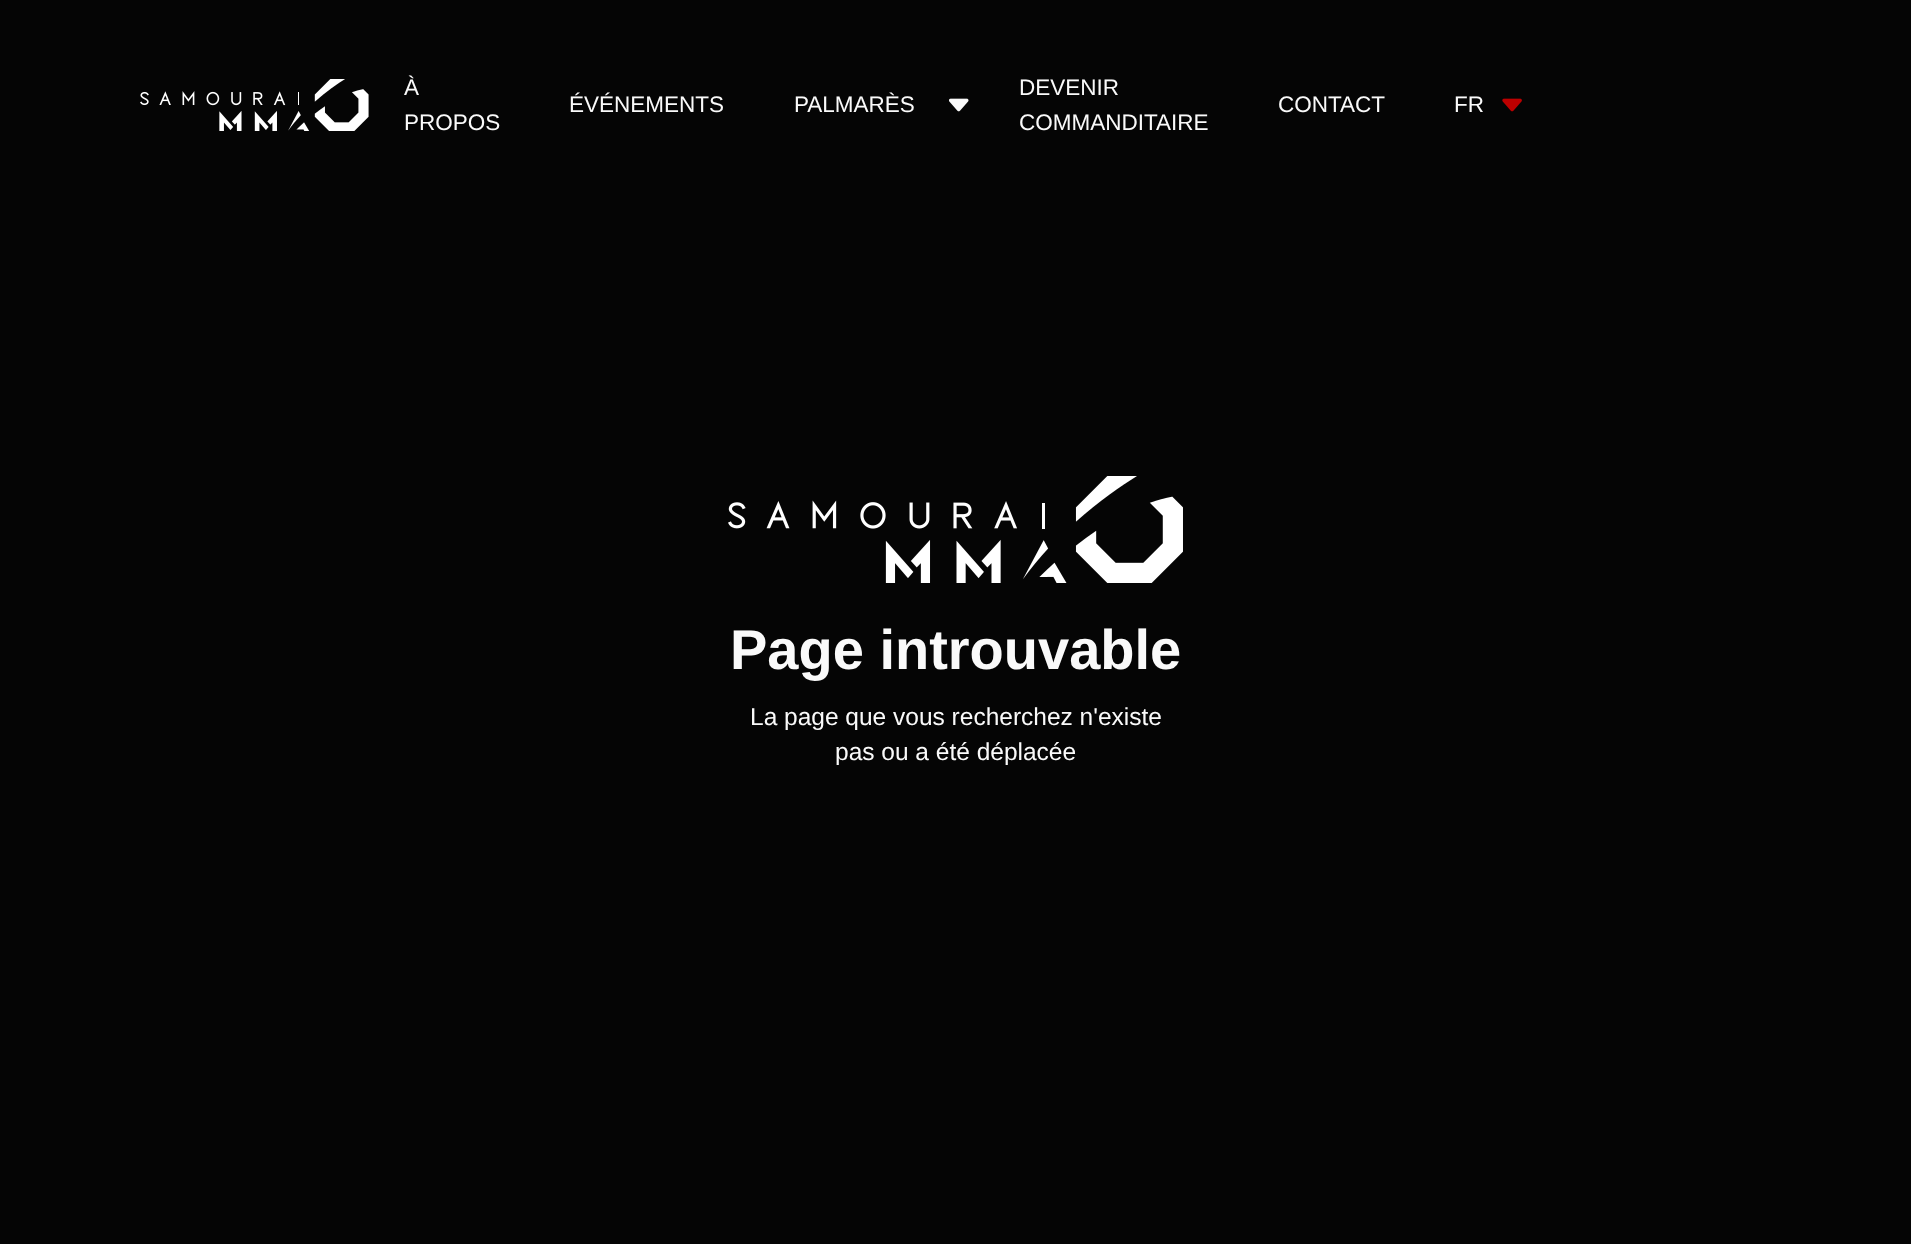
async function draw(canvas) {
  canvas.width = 1911;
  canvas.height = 1244;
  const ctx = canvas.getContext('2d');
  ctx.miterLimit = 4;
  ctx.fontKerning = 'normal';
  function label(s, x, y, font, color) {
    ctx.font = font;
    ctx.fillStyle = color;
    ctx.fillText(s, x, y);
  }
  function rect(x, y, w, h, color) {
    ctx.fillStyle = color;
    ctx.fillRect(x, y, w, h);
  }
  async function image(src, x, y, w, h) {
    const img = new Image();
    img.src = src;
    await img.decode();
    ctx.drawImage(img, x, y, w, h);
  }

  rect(0, 0, 1911, 1244, '#050505');
  await image('assets/img1.png', 140, 79, 229, 52);
  label('À', 404, 95, '22.5px Liberation Sans', '#fafafa');
  label('PROPOS', 404, 130, '22.5px Liberation Sans', '#fafafa');
  label('ÉVÉNEMENTS', 569, 112, '22.5px Liberation Sans', '#fafafa');
  label('PALMARÈS', 794, 112, '22.5px Liberation Sans', '#fafafa');
  await image('assets/img2.png', 949, 98, 20, 14);
  label('DEVENIR', 1019, 95, '22.5px Liberation Sans', '#fafafa');
  label('COMMANDITAIRE', 1019, 130, '22.5px Liberation Sans', '#fafafa');
  label('CONTACT', 1278, 112, '22.5px Liberation Sans', '#fafafa');
  label('FR', 1454, 112, '22.5px Liberation Sans', '#fafafa');
  await image('assets/img3.png', 1502, 98, 20, 14);
  await image('assets/img4.png', 728, 476, 455, 107);
  label('Page introuvable', 730, 669, 'bold 56px Liberation Sans', '#fafafa');
  label('La page que vous recherchez n\'existe', 750, 725, '24.5px Liberation Sans', '#fafafa');
  label('pas ou a été déplacée', 835, 760, '24.5px Liberation Sans', '#fafafa');
}

draw(document.querySelector('canvas'));
